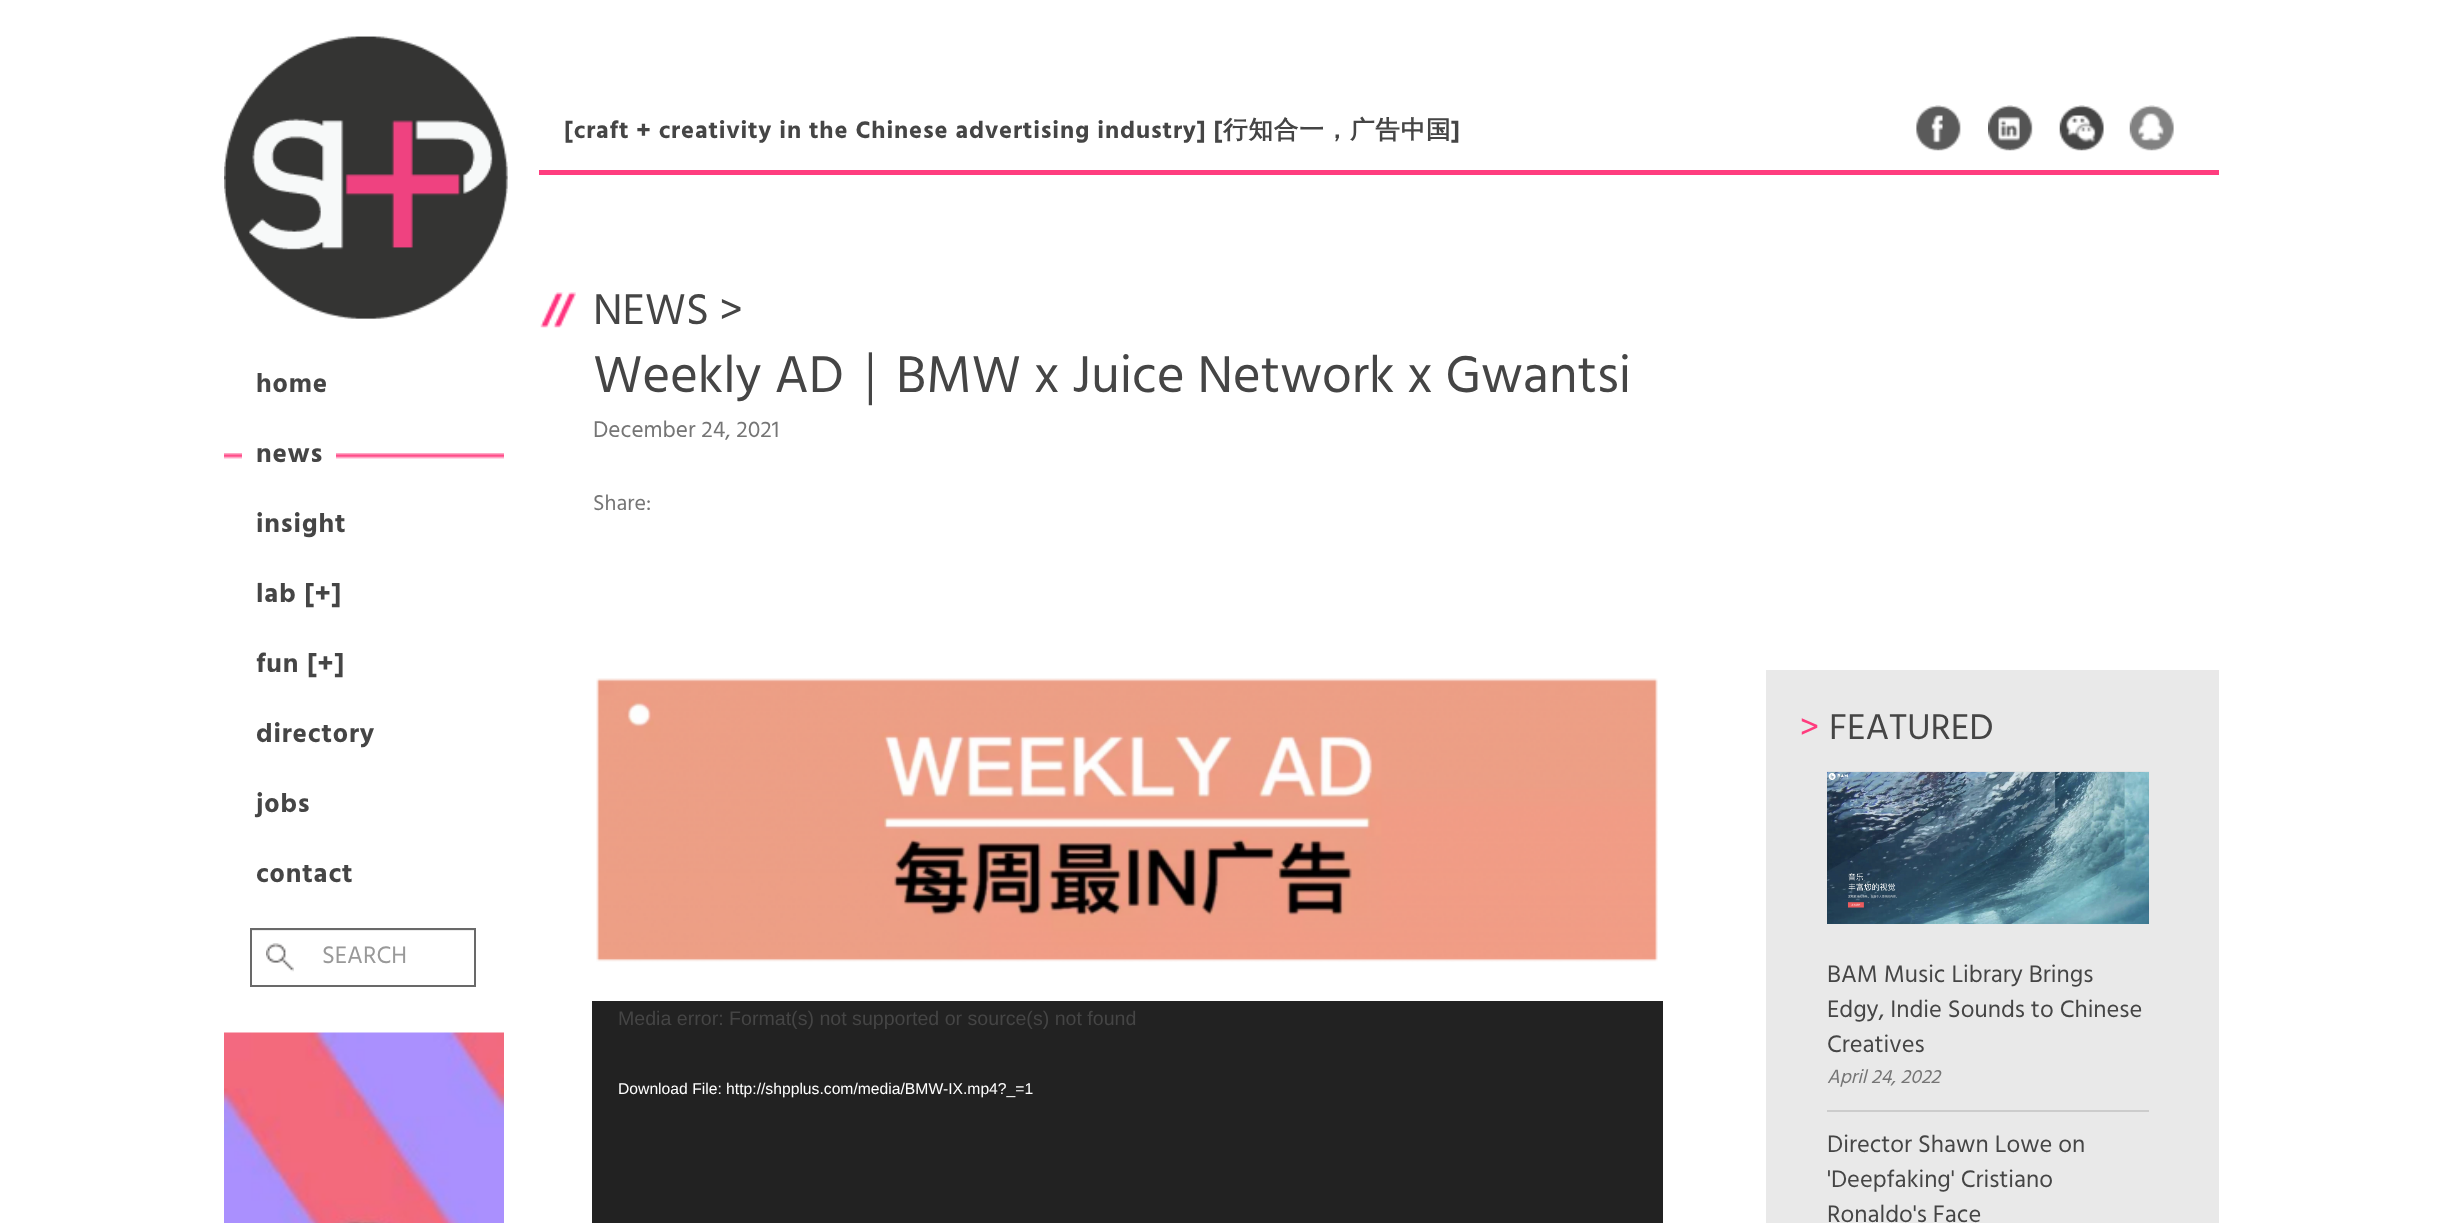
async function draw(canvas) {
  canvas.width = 2442;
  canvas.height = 1223;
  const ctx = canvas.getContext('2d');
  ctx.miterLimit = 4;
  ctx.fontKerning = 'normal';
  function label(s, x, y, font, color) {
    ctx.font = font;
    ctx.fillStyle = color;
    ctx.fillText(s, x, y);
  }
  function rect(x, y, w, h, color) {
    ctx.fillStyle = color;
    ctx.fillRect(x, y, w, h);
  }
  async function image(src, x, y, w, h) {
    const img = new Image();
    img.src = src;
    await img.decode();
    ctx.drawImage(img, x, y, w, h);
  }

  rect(0, 0, 2442, 1223, '#fff');
  await image('assets/img1.png', 224, 36, 284, 283);
  ctx.letterSpacing = '0.88px';
  label('home', 256, 392, 'bold 27px Hind', '#454545');
  await image('assets/img2.png', 224, 453, 280, 6);
  rect(242, 453, 94, 6, '#fff');
  label('news', 256, 462, 'bold 27px Hind', '#454545');
  label('insight', 256, 532, 'bold 27px Hind', '#454545');
  label('lab [+]', 256, 602, 'bold 27px Hind', '#454545');
  label('fun [+]', 256, 672, 'bold 27px Hind', '#454545');
  label('directory', 256, 742, 'bold 27px Hind', '#454545');
  label('jobs', 256, 812, 'bold 27px Hind', '#454545');
  label('contact', 256, 882, 'bold 27px Hind', '#454545');
  await image('assets/img3.png', 266, 943, 28, 29);
  rect(252, 930, 222, 1, '#ececec');
  ctx.strokeStyle = '#696969';
  ctx.lineWidth = 2;
  ctx.strokeRect(251, 929, 224, 57);
  ctx.letterSpacing = '0px';
  label('SEARCH', 322, 963, '24.5px Hind', '#999');
  await image('assets/img4.png', 224, 1032, 280, 191);
  rect(539, 170, 1680, 5, '#ff3d7f');
  ctx.letterSpacing = '0.88px';
  label('[craft + creativity in the Chinese advertising industry] [', 564, 138, 'bold 24.5px Hind', '#454545');
  label('行知合一，广告中国', 1223, 138, 'bold 24.5px WenQuanYi Zen Hei', '#454545');
  label(']', 1451, 138, 'bold 24.5px Hind', '#454545');
  await image('assets/img5.png', 1916, 105, 45, 46);
  await image('assets/img6.png', 1988, 105, 45, 46);
  await image('assets/img7.png', 2059, 105, 45, 46);
  await image('assets/img8.png', 2129, 105, 45, 46);
  await image('assets/img9.png', 540, 292, 36, 36);
  ctx.letterSpacing = '0px';
  label('NEWS >', 593, 324, '44px Hind', '#454545');
  label('Weekly AD', 593, 392, '52.9px Hind', '#454545');
  label('｜', 844, 392, '500 52.9px WenQuanYi Zen Hei', '#454545');
  label('BMW x Juice Network x Gwantsi', 896, 392, '52.9px Hind', '#454545');
  label('December 24, 2021', 593, 437, '23.25px Hind', '#757575');
  label('Share:', 593, 510, '22px Hind', '#757575');
  await image('assets/img10.png', 596, 678, 1062, 284);
  rect(592, 1001, 1071, 222, '#222');
  label('Media error: Format(s) not supported or source(s) not found', 618, 1025, '19.6px Liberation Sans', '#454545');
  label('Download File: http://shpplus.com/media/BMW-IX.mp4?_=1', 618, 1094, '15.7px Liberation Sans', '#fff');
  rect(1766, 670, 453, 553, '#e9e9e9');
  label('>', 1800, 739, '36.75px Hind', '#ff3c7e');
  label('FEATURED', 1829, 739, '36.75px Hind', '#454545');
  rect(1827, 1110, 322, 2, '#ccc');
  await image('assets/img11.png', 1827, 771, 322, 153);
  label('BAM Music Library Brings', 1827, 982, '24.5px Hind', '#454545');
  label('Edgy, Indie Sounds to Chinese', 1827, 1017, '24.5px Hind', '#454545');
  label('Creatives', 1827, 1052, '24.5px Hind', '#454545');
  label('April 24, 2022', 1827, 1083, 'italic 19.6px Hind', '#757575');
  label('Director Shawn Lowe on', 1827, 1152, '24.5px Hind', '#454545');
  label('\'Deepfaking\' Cristiano', 1827, 1187, '24.5px Hind', '#454545');
  label('Ronaldo\'s Face', 1827, 1222, '24.5px Hind', '#454545');
}

draw(document.querySelector('canvas'));
